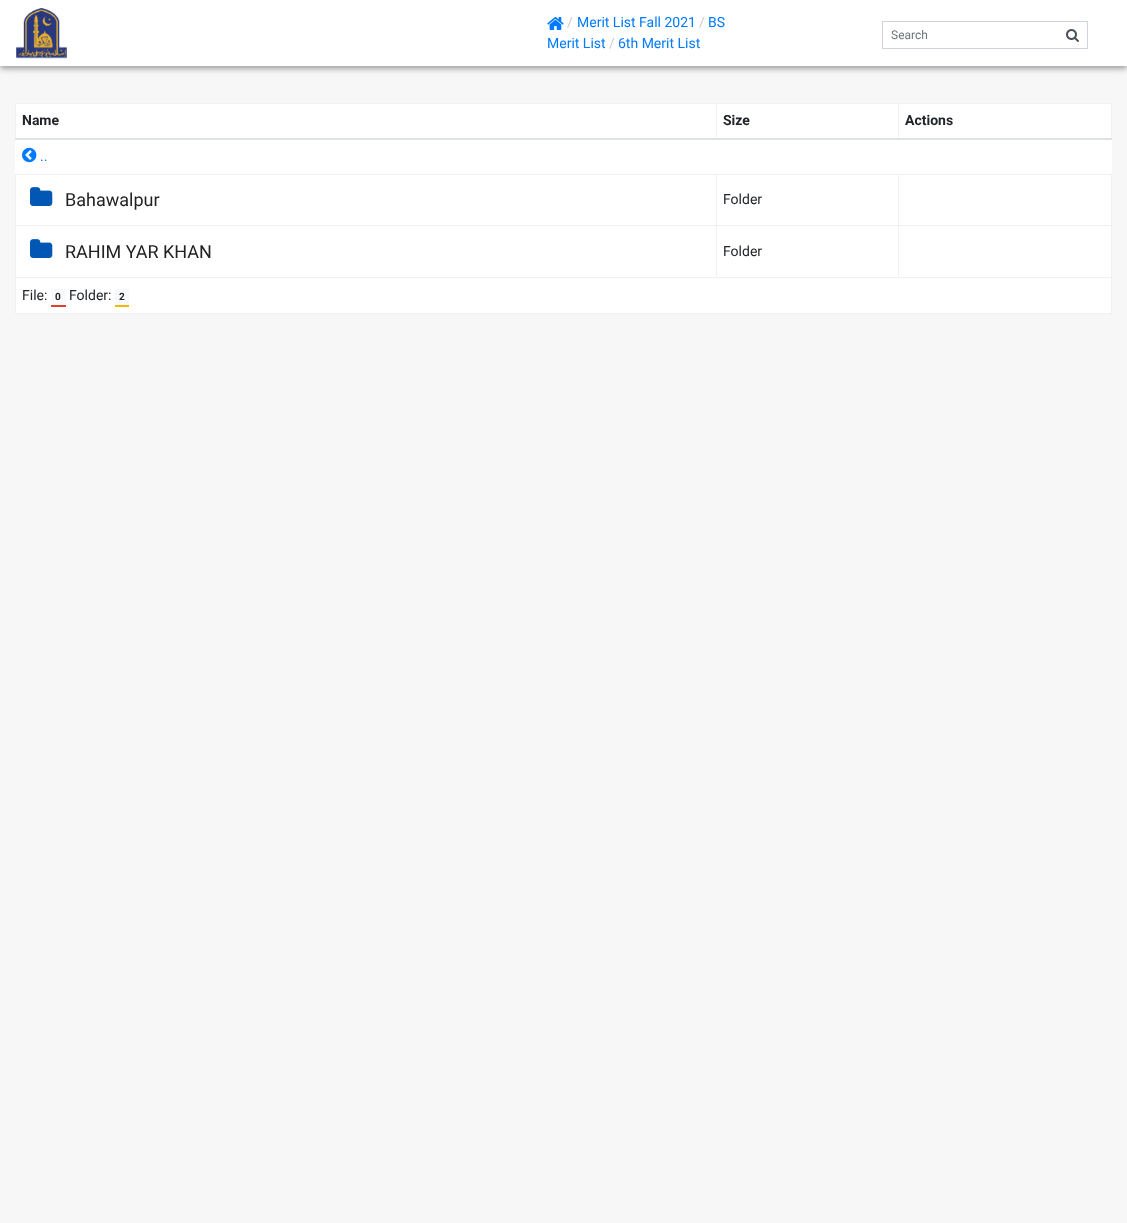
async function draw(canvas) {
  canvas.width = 1127;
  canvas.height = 1223;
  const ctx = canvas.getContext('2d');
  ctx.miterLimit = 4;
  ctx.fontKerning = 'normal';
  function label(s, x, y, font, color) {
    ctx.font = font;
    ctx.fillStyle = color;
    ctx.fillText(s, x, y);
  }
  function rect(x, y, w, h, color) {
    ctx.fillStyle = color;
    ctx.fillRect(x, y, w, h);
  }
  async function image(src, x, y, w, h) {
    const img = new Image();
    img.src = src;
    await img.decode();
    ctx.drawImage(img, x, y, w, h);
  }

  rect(0, 0, 1127, 1223, '#f7f7f7');
  ctx.fillStyle = '#00000033';
  ctx.filter = 'blur(2px)';
  ctx.beginPath();
  ctx.rect(1, 3, 1125, 64);
  ctx.fill();
  ctx.filter = 'none';
  ctx.fillStyle = '#0000001f';
  ctx.filter = 'blur(5px)';
  ctx.beginPath();
  ctx.rect(0, 1, 1127, 66);
  ctx.fill();
  ctx.filter = 'none';
  ctx.fillStyle = '#00000024';
  ctx.filter = 'blur(2.5px)';
  ctx.beginPath();
  ctx.rect(0, 4, 1127, 66);
  ctx.fill();
  ctx.filter = 'none';
  rect(0, 0, 1127, 66, '#fff');
  await image('assets/img1.png', 16, 8, 51, 51);
  await image('assets/img2.png', 547, 17, 17, 13);
  label('/', 567, 27, '14px Roboto', '#ccc');
  label('Merit List Fall 2021', 577, 27, '14px Roboto', '#007bff');
  label('/', 699, 27, '14px Roboto', '#ccc');
  label('BS', 708, 27, '14px Roboto', '#007bff');
  label('Merit List', 547, 48, '14px Roboto', '#007bff');
  label('/', 609, 48, '14px Roboto', '#ccc');
  label('6th Merit List', 618, 48, '14px Roboto', '#007bff');
  rect(882, 21, 206, 1, '#ced4da');
  rect(1087, 21, 1, 28, '#ced4da');
  rect(882, 48, 206, 1, '#ced4da');
  await image('assets/img3.png', 1066, 29, 13, 13);
  rect(882, 21, 1, 28, '#ced4da');
  label('Search', 891, 39, '12px Roboto', '#6c757d');
  rect(15, 104, 1097, 209, '#fff');
  rect(898, 103, 214, 1, '#f1f1f1');
  rect(898, 103, 1, 36, '#f1f1f1');
  rect(716, 103, 183, 1, '#f1f1f1');
  rect(716, 103, 1, 36, '#f1f1f1');
  rect(15, 103, 702, 1, '#f1f1f1');
  rect(15, 103, 1, 36, '#f1f1f1');
  label('Name', 22, 125, 'bold 14px Roboto', '#212529');
  label('Size', 723, 125, 'bold 14px Roboto', '#212529');
  rect(1111, 103, 1, 36, '#f1f1f1');
  rect(15, 138, 1097, 2, '#dee2e6');
  label('Actions', 905, 125, 'bold 14px Roboto', '#212529');
  await image('assets/img4.png', 22, 147, 15, 16);
  label('..', 40, 161, '14px Roboto', '#007bff');
  rect(898, 174, 214, 1, '#f1f1f1');
  rect(898, 225, 214, 1, '#f1f1f1');
  rect(15, 277, 1097, 1, '#f1f1f1');
  rect(898, 225, 1, 53, '#f1f1f1');
  rect(716, 225, 183, 1, '#f1f1f1');
  rect(898, 174, 1, 52, '#f1f1f1');
  rect(716, 174, 183, 1, '#f1f1f1');
  rect(716, 225, 1, 53, '#f1f1f1');
  rect(15, 225, 702, 1, '#f1f1f1');
  rect(716, 174, 1, 52, '#f1f1f1');
  rect(15, 174, 702, 1, '#f1f1f1');
  rect(1111, 277, 1, 37, '#f1f1f1');
  rect(15, 313, 1097, 1, '#f1f1f1');
  rect(15, 277, 1, 37, '#f1f1f1');
  rect(15, 225, 1, 53, '#f1f1f1');
  rect(15, 174, 1, 52, '#f1f1f1');
  await image('assets/img5.png', 30, 187, 23, 19);
  label('Bahawalpur', 65, 206, '18px Roboto', '#222');
  label('Folder', 723, 204, '14px Roboto', '#212529');
  rect(1111, 225, 1, 53, '#f1f1f1');
  rect(1111, 174, 1, 52, '#f1f1f1');
  await image('assets/img5.png', 30, 239, 23, 19);
  label('RAHIM YAR KHAN', 65, 258, '18px Roboto', '#222');
  label('Folder', 723, 256, '14px Roboto', '#212529');
  label('File:', 22, 300, '14px Roboto', '#212529');
  rect(51, 289, 15, 16, '#f8f9fa');
  rect(51, 305, 15, 2, '#df4227');
  label('0', 55, 300, 'bold 10px Roboto', '#212529');
  label('Folder:', 69, 300, '14px Roboto', '#212529');
  rect(115, 289, 14, 16, '#f8f9fa');
  rect(115, 305, 14, 2, '#f8b600');
  label('2', 119, 300, 'bold 10px Roboto', '#212529');
}

draw(document.querySelector('canvas'));
